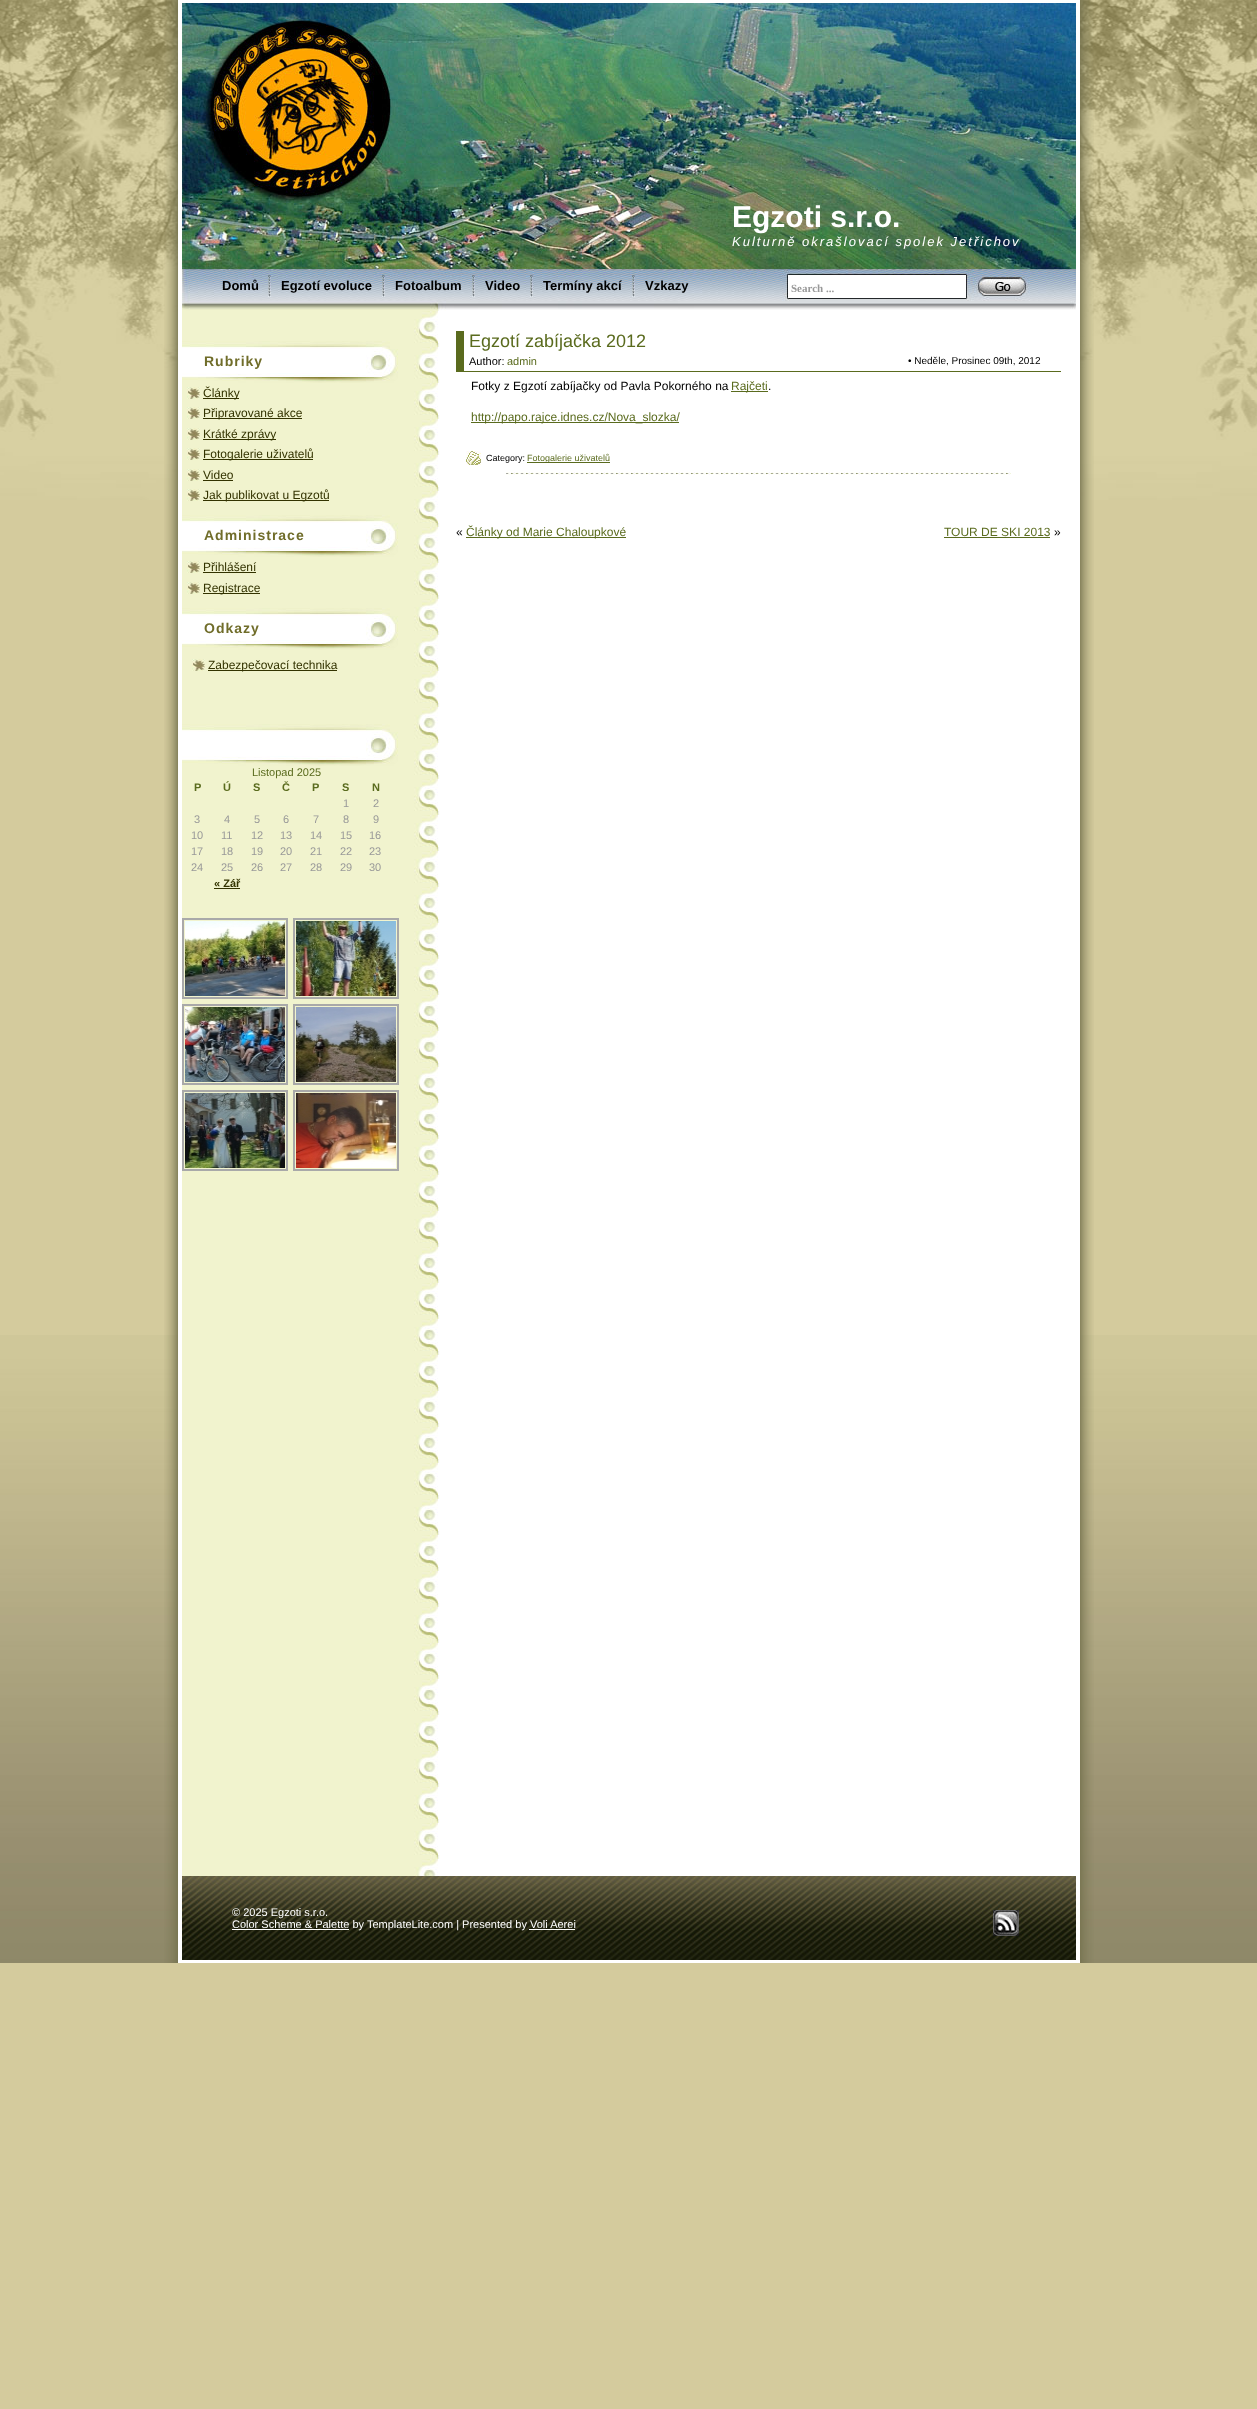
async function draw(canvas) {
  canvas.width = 1257;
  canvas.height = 2409;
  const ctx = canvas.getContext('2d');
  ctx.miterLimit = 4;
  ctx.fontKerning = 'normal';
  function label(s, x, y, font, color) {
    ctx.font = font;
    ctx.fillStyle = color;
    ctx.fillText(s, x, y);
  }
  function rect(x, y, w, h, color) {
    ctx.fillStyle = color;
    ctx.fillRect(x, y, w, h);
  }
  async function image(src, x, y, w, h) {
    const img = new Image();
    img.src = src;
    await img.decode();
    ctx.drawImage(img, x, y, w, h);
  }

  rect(0, 0, 1257, 2409, '#d4cb9d');
  await image('assets/img1.png', 0, 1335, 1257, 628);
  await image('assets/img2.png', 0, 0, 1257, 500);
  await image('assets/img3.png', 164, 0, 930, 1963);
  await image('assets/img4.png', 182, 3, 894, 266);
  label('Egzoti s.r.o.', 732, 227, 'bold 30px Liberation Sans', '#fff');
  ctx.letterSpacing = '2px';
  label('Kulturně okrašlovací spolek Jetřichov', 732, 246, 'italic 13px Liberation Sans', '#fff');
  await image('assets/img5.png', 182, 269, 894, 42);
  ctx.letterSpacing = '0px';
  label('Domů', 222, 290, 'bold 13px Liberation Sans', '#000');
  await image('assets/img6.png', 268, 275, 3, 22);
  label('Egzotí evoluce', 281, 290, 'bold 13px Liberation Sans', '#000');
  await image('assets/img6.png', 382, 275, 3, 22);
  label('Fotoalbum', 395, 290, 'bold 13px Liberation Sans', '#000');
  await image('assets/img6.png', 472, 275, 3, 22);
  label('Video', 485, 290, 'bold 13px Liberation Sans', '#000');
  await image('assets/img6.png', 530, 275, 3, 22);
  label('Termíny akcí', 543, 290, 'bold 13px Liberation Sans', '#000');
  await image('assets/img6.png', 632, 275, 3, 22);
  label('Vzkazy', 645, 290, 'bold 13px Liberation Sans', '#000');
  rect(788, 275, 178, 23, '#fff');
  label('Search ...', 791, 292, 'bold 11px Liberation Serif', '#999');
  await image('assets/img7.png', 182, 311, 258, 1565);
  await image('assets/img8.png', 182, 341, 216, 42);
  ctx.letterSpacing = '1px';
  label('Rubriky', 204, 366, 'bold 14px Liberation Sans', '#706d2a');
  await image('assets/img9.png', 187, 387, 13, 12);
  rect(203, 398, 36, 1, '#330');
  ctx.letterSpacing = '0px';
  label('Články', 203, 397, '12px Liberation Sans', '#330');
  await image('assets/img9.png', 187, 407, 13, 12);
  rect(203, 418, 99, 1, '#330');
  label('Připravované akce', 203, 417, '12px Liberation Sans', '#330');
  await image('assets/img9.png', 187, 428, 13, 12);
  rect(203, 439, 73, 1, '#330');
  label('Krátké zprávy', 203, 438, '12px Liberation Sans', '#330');
  await image('assets/img9.png', 187, 448, 13, 12);
  rect(203, 459, 110, 1, '#330');
  label('Fotogalerie uživatelů', 203, 458, '12px Liberation Sans', '#330');
  await image('assets/img9.png', 187, 469, 13, 12);
  label('Video', 203, 479, '12px Liberation Sans', '#330');
  rect(203, 480, 30, 1, '#330');
  await image('assets/img9.png', 187, 489, 13, 12);
  rect(203, 500, 126, 1, '#330');
  label('Jak publikovat u Egzotů', 203, 499, '12px Liberation Sans', '#330');
  await image('assets/img8.png', 182, 515, 216, 42);
  ctx.letterSpacing = '1px';
  label('Administrace', 204, 540, 'bold 14px Liberation Sans', '#706d2a');
  await image('assets/img9.png', 187, 561, 13, 12);
  ctx.letterSpacing = '0px';
  label('Přihlášení', 203, 571, '12px Liberation Sans', '#330');
  rect(203, 572, 53, 1, '#330');
  await image('assets/img9.png', 187, 582, 13, 12);
  rect(203, 593, 57, 1, '#330');
  label('Registrace', 203, 592, '12px Liberation Sans', '#330');
  await image('assets/img8.png', 182, 608, 216, 42);
  ctx.letterSpacing = '1px';
  label('Odkazy', 204, 633, 'bold 14px Liberation Sans', '#706d2a');
  await image('assets/img10.png', 192, 659, 13, 12);
  rect(208, 670, 129, 1, '#330');
  ctx.letterSpacing = '0px';
  label('Zabezpečovací technika', 208, 669, '12px Liberation Sans', '#330');
  await image('assets/img8.png', 182, 724, 216, 42);
  label('Listopad 2025', 252, 776, '11px Liberation Sans', '#5a6b1e');
  label('P', 194, 791, 'bold 11px Liberation Sans', '#5a6b1e');
  label('Ú', 223, 791, 'bold 11px Liberation Sans', '#5a6b1e');
  label('S', 253, 791, 'bold 11px Liberation Sans', '#5a6b1e');
  label('Č', 282, 791, 'bold 11px Liberation Sans', '#5a6b1e');
  label('P', 312, 791, 'bold 11px Liberation Sans', '#5a6b1e');
  label('S', 342, 791, 'bold 11px Liberation Sans', '#5a6b1e');
  label('N', 372, 791, 'bold 11px Liberation Sans', '#5a6b1e');
  label('1', 343, 807, '11px Liberation Sans', '#999');
  label('2', 373, 807, '11px Liberation Sans', '#999');
  label('3', 194, 823, '11px Liberation Sans', '#999');
  label('4', 224, 823, '11px Liberation Sans', '#999');
  label('5', 254, 823, '11px Liberation Sans', '#999');
  label('6', 283, 823, '11px Liberation Sans', '#999');
  label('7', 313, 823, '11px Liberation Sans', '#999');
  label('8', 343, 823, '11px Liberation Sans', '#999');
  label('9', 373, 823, '11px Liberation Sans', '#999');
  label('10', 191, 839, '11px Liberation Sans', '#999');
  label('11', 221, 839, '11px Liberation Sans', '#999');
  label('12', 251, 839, '11px Liberation Sans', '#999');
  label('13', 280, 839, '11px Liberation Sans', '#999');
  label('14', 310, 839, '11px Liberation Sans', '#999');
  label('15', 340, 839, '11px Liberation Sans', '#999');
  label('16', 369, 839, '11px Liberation Sans', '#999');
  label('17', 191, 855, '11px Liberation Sans', '#999');
  label('18', 221, 855, '11px Liberation Sans', '#999');
  label('19', 251, 855, '11px Liberation Sans', '#999');
  label('20', 280, 855, '11px Liberation Sans', '#999');
  label('21', 310, 855, '11px Liberation Sans', '#999');
  label('22', 340, 855, '11px Liberation Sans', '#999');
  label('23', 369, 855, '11px Liberation Sans', '#999');
  label('24', 191, 871, '11px Liberation Sans', '#999');
  label('25', 221, 871, '11px Liberation Sans', '#999');
  label('26', 251, 871, '11px Liberation Sans', '#999');
  label('27', 280, 871, '11px Liberation Sans', '#999');
  label('28', 310, 871, '11px Liberation Sans', '#999');
  label('29', 340, 871, '11px Liberation Sans', '#999');
  label('30', 369, 871, '11px Liberation Sans', '#999');
  label('« Zář', 214, 887, 'bold 11px Liberation Sans', '#330');
  rect(214, 888, 26, 1, '#330');
  ctx.strokeStyle = '#a9a9a9';
  ctx.lineWidth = 2;
  ctx.strokeRect(183, 919, 104, 79);
  ctx.strokeRect(294, 919, 104, 79);
  await image('assets/img11.png', 185, 921, 100, 75);
  await image('assets/img12.png', 296, 921, 100, 75);
  ctx.strokeRect(183, 1005, 104, 79);
  ctx.strokeRect(294, 1005, 104, 79);
  await image('assets/img13.png', 185, 1007, 100, 75);
  await image('assets/img14.png', 296, 1007, 100, 75);
  ctx.strokeRect(183, 1091, 104, 79);
  ctx.strokeRect(294, 1091, 104, 79);
  await image('assets/img15.png', 185, 1093, 100, 75);
  await image('assets/img16.png', 296, 1093, 100, 75);
  rect(456, 371, 605, 1, '#5a6b1e');
  rect(456, 331, 8, 41, '#5a6b1e');
  label('Egzotí zabíjačka 2012', 469, 347, '18px Liberation Sans', '#5a6b1e');
  label('Author:', 469, 365, '11px Liberation Sans', '#000');
  label('admin', 507, 365, '11px Liberation Sans', '#5a6b1e');
  label('• Neděle, Prosinec 09th, 2012', 908, 364, '10px Liberation Sans', '#000');
  label('Fotky z Egzotí zabíjačky od Pavla Pokorného na', 471, 390, '12px Liberation Sans', '#000');
  rect(731, 391, 37, 1, '#5a6b1e');
  label('Rajčeti', 731, 390, '12px Liberation Sans', '#5a6b1e');
  label('.', 768, 390, '12px Liberation Sans', '#000');
  rect(471, 422, 208, 1, '#5a6b1e');
  label('http://papo.rajce.idnes.cz/Nova_slozka/', 471, 421, '12px Liberation Sans', '#5a6b1e');
  await image('assets/img17.png', 466, 451, 15, 14);
  label('Category:', 486, 461, '9px Liberation Sans', '#000');
  rect(527, 462, 83, 1, '#5a6b1e');
  label('Fotogalerie uživatelů', 527, 461, '9px Liberation Sans', '#5a6b1e');
  await image('assets/img18.png', 506, 472, 505, 3);
  label('«', 456, 536, '12px Liberation Sans', '#000');
  rect(466, 537, 160, 1, '#5a6b1e');
  label('Články od Marie Chaloupkové', 466, 536, '12px Liberation Sans', '#5a6b1e');
  label('TOUR DE SKI 2013', 944, 536, '12px Liberation Sans', '#5a6b1e');
  rect(944, 537, 106, 1, '#5a6b1e');
  label('»', 1054, 536, '12px Liberation Sans', '#000');
  await image('assets/img19.png', 182, 1876, 894, 84);
  label('© 2025 Egzoti s.r.o.', 232, 1916, '11px Liberation Sans', '#fff');
  await image('assets/img20.png', 993, 1910, 26, 26);
  rect(232, 1929, 117, 1, '#fff');
  label('Color Scheme & Palette by TemplateLite.com | Presented by Voli Aerei', 232, 1928, '11px Liberation Sans', '#fff');
  rect(529, 1929, 46, 1, '#fff');
}

draw(document.querySelector('canvas'));
